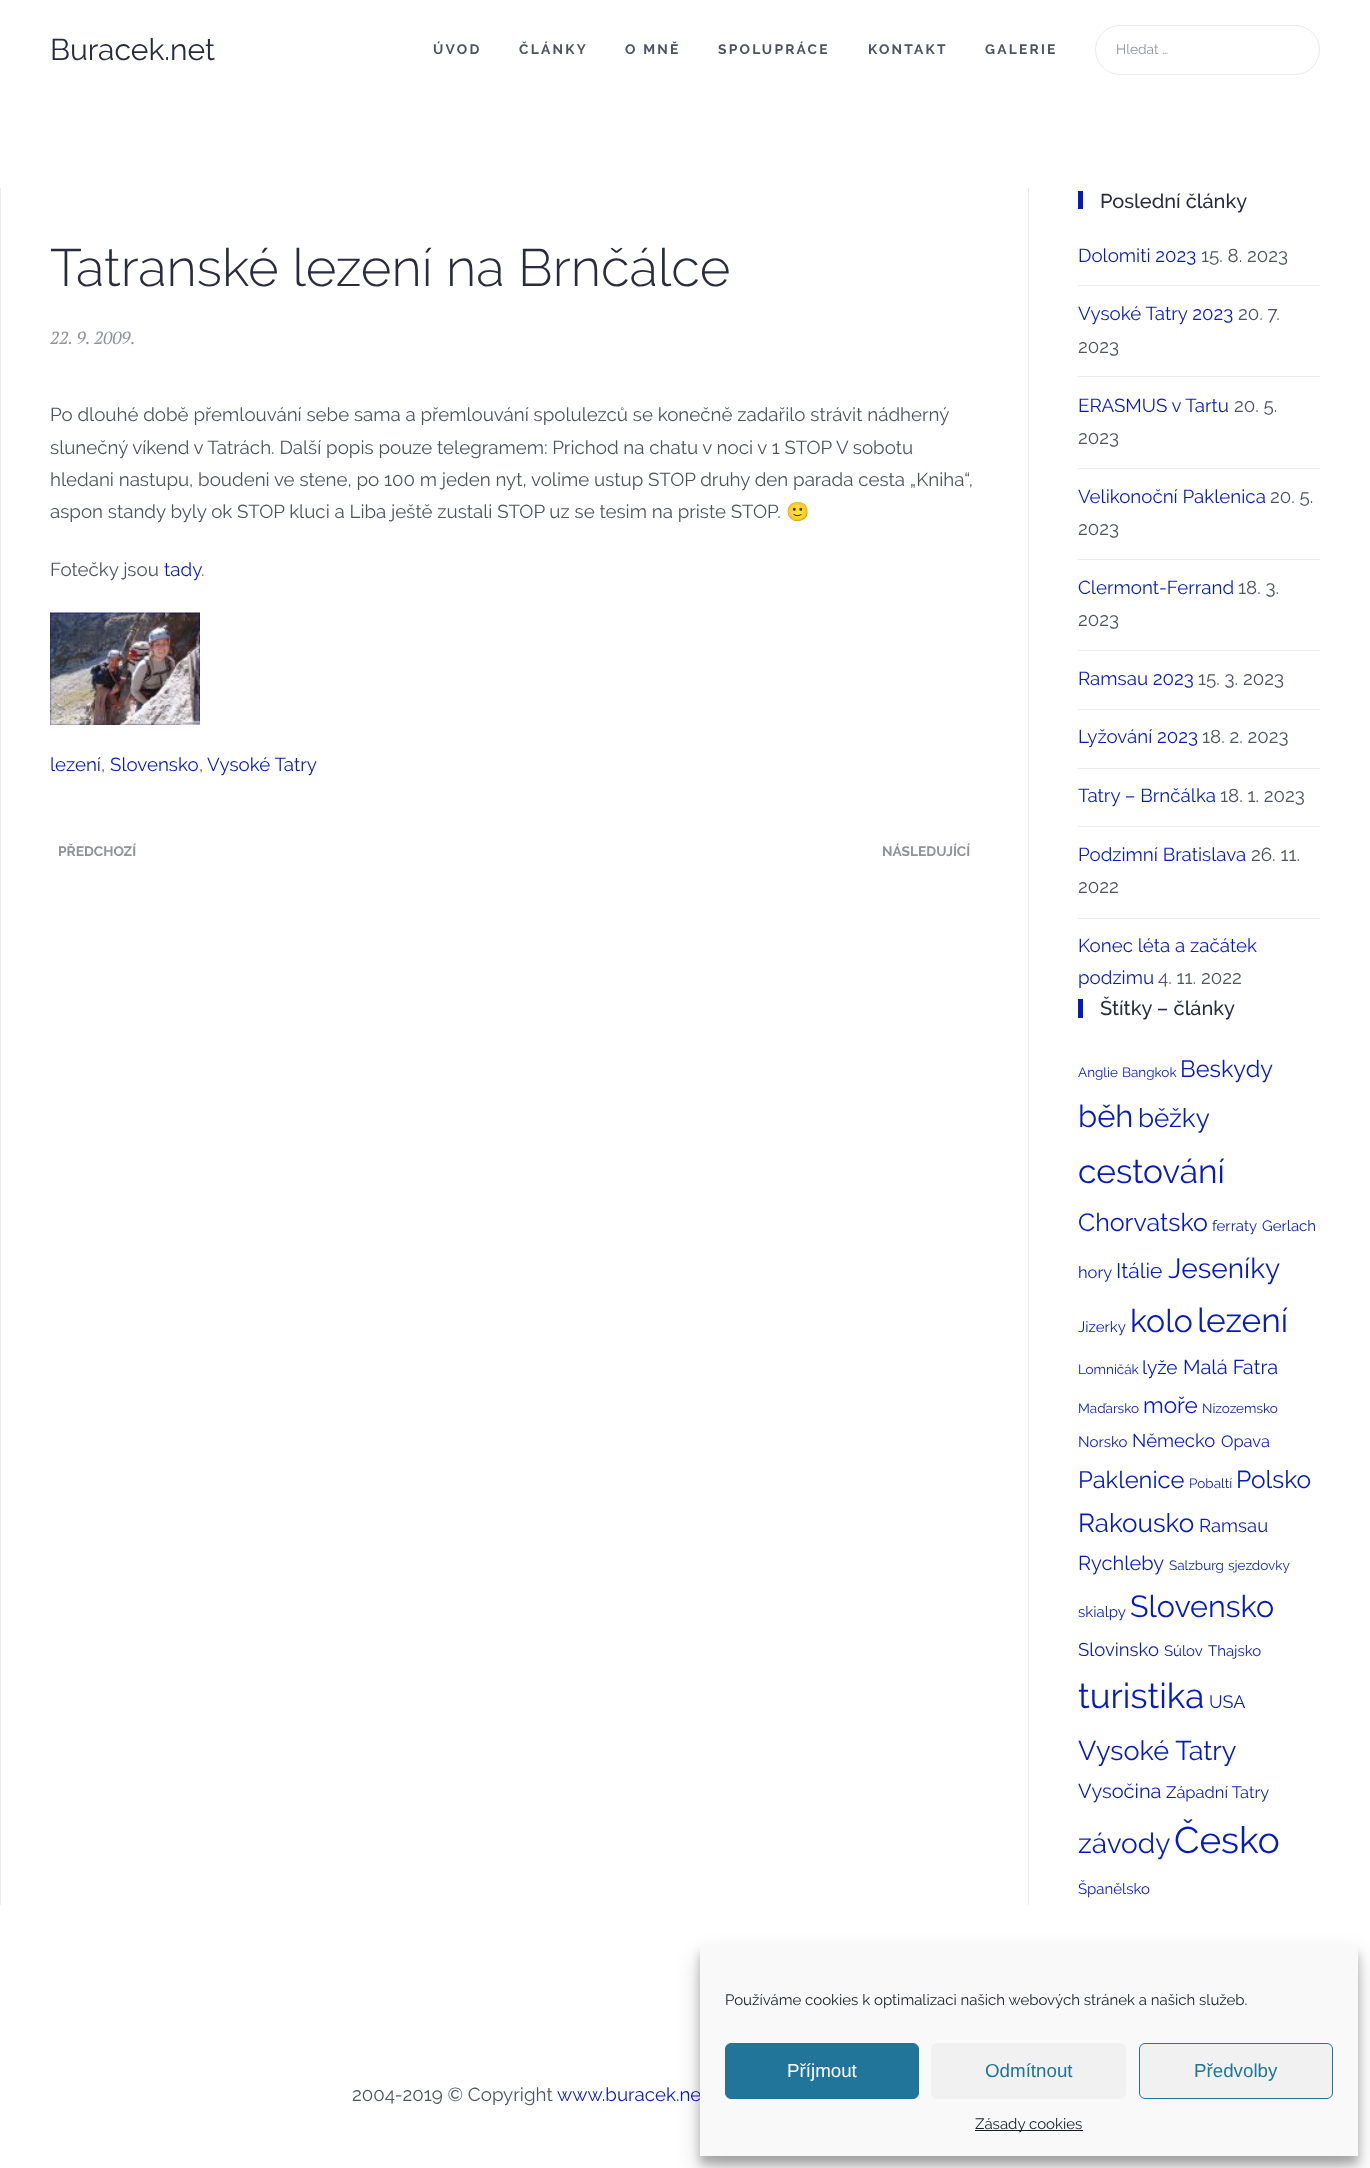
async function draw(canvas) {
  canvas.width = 1370;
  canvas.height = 2168;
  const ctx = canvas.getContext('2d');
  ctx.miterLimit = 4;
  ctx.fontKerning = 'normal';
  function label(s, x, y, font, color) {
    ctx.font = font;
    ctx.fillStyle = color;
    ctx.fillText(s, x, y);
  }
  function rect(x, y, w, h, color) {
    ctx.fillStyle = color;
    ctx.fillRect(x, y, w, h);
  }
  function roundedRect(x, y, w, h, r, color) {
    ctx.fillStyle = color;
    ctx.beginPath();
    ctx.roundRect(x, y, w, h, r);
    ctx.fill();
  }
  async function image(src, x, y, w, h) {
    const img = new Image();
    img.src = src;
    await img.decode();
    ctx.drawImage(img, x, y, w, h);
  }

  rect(0, 0, 1370, 2168, '#fff');
  label('Buracek.net', 50, 60, '30px Raleway', '#292c3d');
  ctx.letterSpacing = '2.25px';
  label('ÚVOD', 433, 54, 'bold 13.75px Raleway', '#4f5260');
  label('ČLÁNKY', 519, 54, 'bold 13.75px Raleway', '#4f5260');
  label('O MNĚ', 625, 54, 'bold 13.75px Raleway', '#4f5260');
  label('SPOLUPRÁCE', 718, 54, 'bold 13.75px Raleway', '#4f5260');
  label('KONTAKT', 868, 54, 'bold 13.75px Raleway', '#4f5260');
  label('GALERIE', 985, 54, 'bold 13.75px Raleway', '#4f5260');
  ctx.beginPath();
  ctx.roundRect(1095.5, 25.5, 224, 49, 24.5);
  ctx.strokeStyle = '#ebebed';
  ctx.stroke();
  ctx.letterSpacing = '0px';
  label('Hledat …', 1116, 54, '13.75px Raleway', '#90929d');
  rect(0, 188, 1, 1717, '#ebebed');
  label('Tatranské lezení na Brnčálce', 50, 286, '300 52.5px Raleway', '#292c3d');
  label('22. 9. 2009.', 50, 344, 'italic 17.5px PT Serif', '#90929d');
  label('Po dlouhé době přemlouvání sebe sama a přemlouvání spolulezců se konečně zadařilo strávit nádherný', 50, 421, '18.75px Raleway', '#4f5260');
  label('slunečný víkend v Tatrách. Další popis pouze telegramem: Prichod na chatu v noci v 1 STOP V sobotu', 50, 454, '18.75px Raleway', '#4f5260');
  label('hledani nastupu, boudeni ve stene, po 100 m jeden nyt, volime ustup STOP druhy den parada cesta „Kniha“,', 50, 486, '18.75px Raleway', '#4f5260');
  label('aspon standy byly ok STOP kluci a Liba ještě zustali STOP uz se tesim na priste STOP.', 50, 518, '18.75px Raleway', '#4f5260');
  label('🙂', 786, 518, '18.75px Noto Color Emoji', '#4f5260');
  label('Fotečky jsou', 50, 576, '18.75px Raleway', '#4f5260');
  label('tady', 164, 576, '18.75px Raleway', '#061bbb');
  label('.', 201, 576, '18.75px Raleway', '#4f5260');
  await image('assets/img1.png', 50, 612, 150, 113);
  label('lezení', 50, 771, '18.75px Raleway', '#061bbb');
  label(',', 101, 771, '18.75px Raleway', '#4f5260');
  label('Slovensko', 110, 771, '18.75px Raleway', '#061bbb');
  label(',', 199, 771, '18.75px Raleway', '#4f5260');
  label('Vysoké Tatry', 207, 771, '18.75px Raleway', '#061bbb');
  label('PŘEDCHOZÍ', 58, 856, 'bold 13.75px Raleway', '#90929d');
  label('NÁSLEDUJÍCÍ', 882, 856, 'bold 13.75px Raleway', '#90929d');
  rect(1028, 188, 1, 1717, '#ebebed');
  rect(1078, 191, 5, 18, '#061bbb');
  label('Poslední články', 1100, 208, '500 20px Raleway', '#292c3d');
  label('Dolomiti 2023', 1078, 262, '18.75px Raleway', '#061bbb');
  label('15. 8. 2023', 1201, 262, '18.75px Raleway', '#4f5260');
  rect(1078, 285, 242, 1, '#ebebed');
  label('Vysoké Tatry 2023', 1078, 320, '18.75px Raleway', '#061bbb');
  label('20. 7.', 1238, 320, '18.75px Raleway', '#4f5260');
  label('2023', 1078, 353, '18.75px Raleway', '#4f5260');
  rect(1078, 376, 242, 1, '#ebebed');
  label('ERASMUS v Tartu', 1078, 412, '18.75px Raleway', '#061bbb');
  label('20. 5.', 1234, 412, '18.75px Raleway', '#4f5260');
  label('2023', 1078, 444, '18.75px Raleway', '#4f5260');
  rect(1078, 468, 242, 1, '#ebebed');
  label('Velikonoční Paklenica', 1078, 503, '18.75px Raleway', '#061bbb');
  label('20. 5.', 1270, 503, '18.75px Raleway', '#4f5260');
  label('2023', 1078, 535, '18.75px Raleway', '#4f5260');
  rect(1078, 559, 242, 1, '#ebebed');
  label('Clermont-Ferrand', 1078, 594, '18.75px Raleway', '#061bbb');
  label('18. 3.', 1238, 594, '18.75px Raleway', '#4f5260');
  label('2023', 1078, 626, '18.75px Raleway', '#4f5260');
  rect(1078, 650, 242, 1, '#ebebed');
  label('Ramsau 2023', 1078, 685, '18.75px Raleway', '#061bbb');
  label('15. 3. 2023', 1198, 685, '18.75px Raleway', '#4f5260');
  rect(1078, 709, 242, 1, '#ebebed');
  label('Lyžování 2023', 1078, 743, '18.75px Raleway', '#061bbb');
  label('18. 2. 2023', 1202, 743, '18.75px Raleway', '#4f5260');
  rect(1078, 768, 242, 1, '#ebebed');
  label('Tatry – Brnčálka', 1078, 802, '18.75px Raleway', '#061bbb');
  label('18. 1. 2023', 1220, 802, '18.75px Raleway', '#4f5260');
  rect(1078, 826, 242, 1, '#ebebed');
  label('Podzimní Bratislava', 1078, 861, '18.75px Raleway', '#061bbb');
  label('26. 11.', 1251, 861, '18.75px Raleway', '#4f5260');
  label('2022', 1078, 893, '18.75px Raleway', '#4f5260');
  rect(1078, 918, 242, 1, '#ebebed');
  label('Konec léta a začátek', 1078, 952, '18.75px Raleway', '#061bbb');
  label('podzimu', 1078, 984, '18.75px Raleway', '#061bbb');
  label('4. 11. 2022', 1158, 984, '18.75px Raleway', '#4f5260');
  rect(1078, 999, 5, 19, '#061bbb');
  label('Štítky – články', 1100, 1015, '500 20px Raleway', '#292c3d');
  label('Anglie', 1078, 1077, '13.5px Raleway', '#061bbb');
  label('Bangkok', 1122, 1077, '13.5px Raleway', '#061bbb');
  label('Beskydy', 1180, 1077, '23.5px Raleway', '#061bbb');
  label('běh', 1078, 1127, '31px Raleway', '#061bbb');
  label('běžky', 1138, 1127, '26px Raleway', '#061bbb');
  label('cestování', 1078, 1183, '33.5px Raleway', '#061bbb');
  label('Chorvatsko', 1078, 1231, '25px Raleway', '#061bbb');
  label('ferraty', 1212, 1231, '15px Raleway', '#061bbb');
  label('Gerlach', 1262, 1231, '15px Raleway', '#061bbb');
  label('hory', 1078, 1278, '16.5px Raleway', '#061bbb');
  label('Itálie', 1116, 1278, '21px Raleway', '#061bbb');
  label('Jeseníky', 1168, 1278, '28px Raleway', '#061bbb');
  label('Jizerky', 1078, 1332, '15px Raleway', '#061bbb');
  label('kolo', 1130, 1332, '32px Raleway', '#061bbb');
  label('lezení', 1197, 1332, '33.5px Raleway', '#061bbb');
  label('Lomničák', 1078, 1374, '13.5px Raleway', '#061bbb');
  label('lyže', 1142, 1374, '19px Raleway', '#061bbb');
  label('Malá Fatra', 1183, 1374, '20px Raleway', '#061bbb');
  label('Maďarsko', 1078, 1413, '13.5px Raleway', '#061bbb');
  label('moře', 1143, 1413, '22.5px Raleway', '#061bbb');
  label('Nizozemsko', 1202, 1413, '13.5px Raleway', '#061bbb');
  label('Norsko', 1078, 1447, '15px Raleway', '#061bbb');
  label('Německo', 1132, 1447, '18.5px Raleway', '#061bbb');
  label('Opava', 1221, 1447, '16.5px Raleway', '#061bbb');
  label('Paklenice', 1078, 1488, '23.75px Raleway', '#061bbb');
  label('Pobaltí', 1189, 1488, '13.5px Raleway', '#061bbb');
  label('Polsko', 1236, 1488, '24.5px Raleway', '#061bbb');
  label('Rakousko', 1078, 1532, '26px Raleway', '#061bbb');
  label('Ramsau', 1199, 1532, '18.5px Raleway', '#061bbb');
  label('Rychleby', 1078, 1570, '20px Raleway', '#061bbb');
  label('Salzburg', 1169, 1570, '13.5px Raleway', '#061bbb');
  label('sjezdovky', 1228, 1570, '13.5px Raleway', '#061bbb');
  label('skialpy', 1078, 1617, '15px Raleway', '#061bbb');
  label('Slovensko', 1130, 1617, '30.5px Raleway', '#061bbb');
  label('Slovinsko', 1078, 1656, '18.5px Raleway', '#061bbb');
  label('Súlov', 1164, 1656, '15px Raleway', '#061bbb');
  label('Thajsko', 1208, 1656, '15px Raleway', '#061bbb');
  label('turistika', 1078, 1708, '35px Raleway', '#061bbb');
  label('USA', 1209, 1708, '18px Raleway', '#061bbb');
  label('Vysoké Tatry', 1078, 1760, '27px Raleway', '#061bbb');
  label('Vysočina', 1078, 1798, '20px Raleway', '#061bbb');
  label('Západní Tatry', 1166, 1798, '16.5px Raleway', '#061bbb');
  label('závody', 1078, 1853, '28px Raleway', '#061bbb');
  label('Česko', 1174, 1853, '37px Raleway', '#061bbb');
  label('Španělsko', 1078, 1894, '15px Raleway', '#061bbb');
  label('2004-2019 © Copyright', 352, 2101, '18.75px Raleway', '#4f5260');
  label('www.buracek.ne', 557, 2101, '18.75px Raleway', '#061bbb');
  ctx.fillStyle = '#0000003b';
  ctx.filter = 'blur(4px)';
  ctx.beginPath();
  ctx.rect(700, 1953, 658, 211);
  ctx.fill();
  ctx.filter = 'none';
  ctx.fillStyle = '#00000030';
  ctx.filter = 'blur(12.5px)';
  ctx.beginPath();
  ctx.rect(700, 1958, 658, 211);
  ctx.fill();
  ctx.filter = 'none';
  rect(700, 1945, 658, 211, '#f9f9f9');
  label('Používáme cookies k optimalizaci našich webových stránek a našich služeb.', 725, 2005, '15px Raleway', '#191e23');
  ctx.fillStyle = '#21759b';
  ctx.beginPath();
  ctx.roundRect(725.5, 2043.5, 193, 55, 5.5);
  ctx.fill();
  ctx.strokeStyle = '#21759b';
  ctx.stroke();
  label('Příjmout', 787, 2077, '18.75px Liberation Sans', '#fff');
  roundedRect(931, 2043, 195, 56, 6, '#f1f1f1');
  label('Odmítnout', 985, 2077, '18.75px Liberation Sans', '#21759b');
  ctx.fillStyle = '#f1f1f1';
  ctx.beginPath();
  ctx.roundRect(1139.5, 2043.5, 193, 55, 5.5);
  ctx.fill();
  ctx.stroke();
  label('Předvolby', 1194, 2077, '18.75px Liberation Sans', '#21759b');
  rect(975, 2130, 108, 1, '#191e23');
  label('Zásady cookies', 975, 2129, '15px Raleway', '#191e23');
}

draw(document.querySelector('canvas'));
